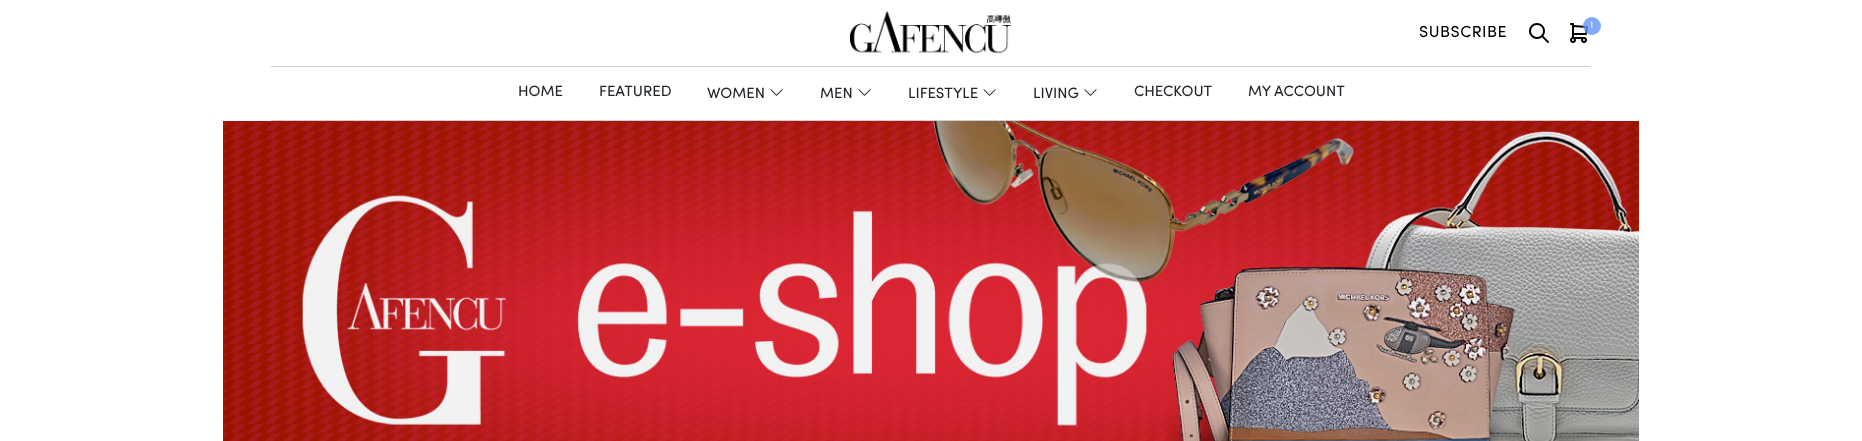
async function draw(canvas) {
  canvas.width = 1862;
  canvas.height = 441;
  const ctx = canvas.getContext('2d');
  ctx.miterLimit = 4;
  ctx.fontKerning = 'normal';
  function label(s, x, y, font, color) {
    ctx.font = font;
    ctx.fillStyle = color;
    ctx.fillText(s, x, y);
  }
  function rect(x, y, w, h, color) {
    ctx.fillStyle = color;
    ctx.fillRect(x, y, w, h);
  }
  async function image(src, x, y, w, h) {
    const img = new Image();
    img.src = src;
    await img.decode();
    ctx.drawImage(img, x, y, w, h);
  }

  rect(0, 0, 1862, 441, '#fff');
  await image('assets/img1.png', 850, 10, 161, 44);
  ctx.letterSpacing = '0.5px';
  label('SUBSCRIBE', 1419, 37, '16px Sofia', '#000');
  await image('assets/img2.png', 1529, 23, 20, 20);
  await image('assets/img3.png', 1570, 23, 18, 20);
  ctx.fillStyle = '#6395f8cc';
  ctx.beginPath();
  ctx.arc(1592, 26, 9, 0, 2 * Math.PI);
  ctx.fill();
  ctx.letterSpacing = '0px';
  label('1', 1590, 28, '300 10px Sofia', '#fff');
  rect(271, 66, 1320, 1, '#cecece');
  rect(271, 120, 1320, 1, '#cecece');
  label('HOME', 518, 96, '15px Sofia', '#212529');
  label('FEATURED', 599, 96, '15px Sofia', '#212529');
  label('WOMEN', 707, 98, '15px Sofia', '#212529');
  await image('assets/img4.png', 770, 89, 13, 7);
  label('MEN', 820, 98, '15px Sofia', '#212529');
  await image('assets/img4.png', 858, 89, 13, 7);
  label('LIFESTYLE', 908, 98, '15px Sofia', '#212529');
  await image('assets/img4.png', 983, 89, 13, 7);
  label('LIVING', 1033, 98, '15px Sofia', '#212529');
  await image('assets/img4.png', 1084, 89, 13, 7);
  label('CHECKOUT', 1134, 96, '15px Sofia', '#212529');
  label('MY ACCOUNT', 1248, 96, '15px Sofia', '#212529');
  await image('assets/img5.png', 223, 121, 1416, 320);
}

draw(document.querySelector('canvas'));
